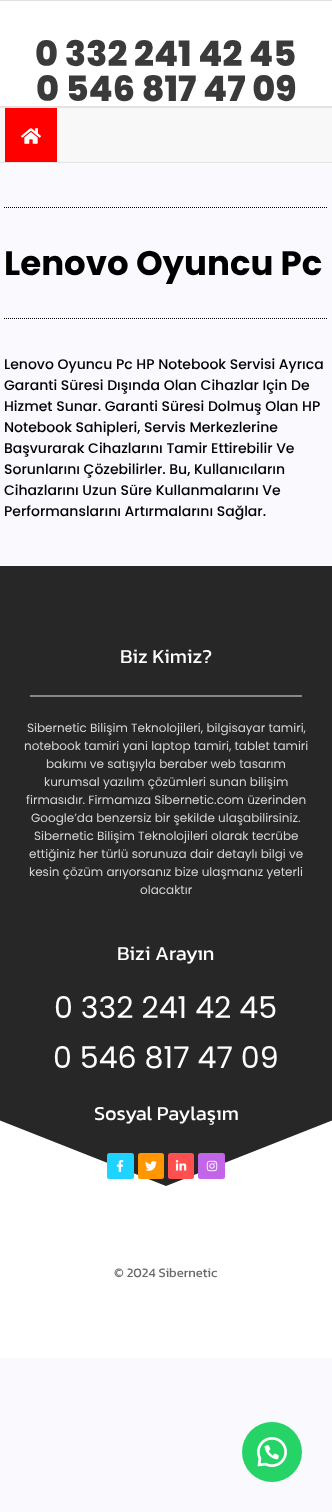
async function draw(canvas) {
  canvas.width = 332;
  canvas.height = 1512;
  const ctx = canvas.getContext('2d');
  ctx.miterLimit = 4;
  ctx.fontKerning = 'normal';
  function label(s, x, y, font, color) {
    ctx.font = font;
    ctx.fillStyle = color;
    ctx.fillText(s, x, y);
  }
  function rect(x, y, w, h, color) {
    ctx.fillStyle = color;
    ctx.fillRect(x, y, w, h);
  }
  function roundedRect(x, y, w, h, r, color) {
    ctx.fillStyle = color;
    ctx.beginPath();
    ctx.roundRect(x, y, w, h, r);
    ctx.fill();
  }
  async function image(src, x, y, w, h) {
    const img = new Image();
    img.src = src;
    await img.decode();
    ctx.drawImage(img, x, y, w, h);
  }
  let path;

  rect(0, 0, 332, 1512, '#f9f9fe');
  rect(0, 1, 332, 105, '#fff');
  rect(0, 0, 332, 1, '#e1e1e1');
  rect(0, 106, 332, 1, '#e1e1e1');
  label('0 332 241 42 45', 35, 66, '800 35px Poppins', '#3a3a3a');
  label('0 546 817 47 09', 36, 101, '800 35px Poppins', '#3a3a3a');
  rect(0, 108, 332, 54, '#f8f8f8');
  rect(0, 107, 332, 1, '#e4e4e4');
  rect(0, 162, 332, 1, '#e4e4e4');
  rect(5, 108, 52, 54, '#f00');
  await image('assets/img1.png', 21, 128, 20, 16);
  path = new Path2D('M4 207.5H328');
  ctx.strokeStyle = '#000';
  ctx.setLineDash([1, 1]);
  ctx.stroke(path);
  label('Lenovo Oyuncu Pc', 4, 275, 'bold 34px Poppins', '#000');
  path = new Path2D('M4 318.5H328');
  ctx.stroke(path);
  label('Lenovo Oyuncu Pc HP Notebook Servisi Ayrıca', 4, 369, '500 14px Poppins', '#000');
  label('Garanti Süresi Dışında Olan Cihazlar Için De', 4, 390, '500 14px Poppins', '#000');
  label('Hizmet Sunar. Garanti Süresi Dolmuş Olan HP', 4, 411, '500 14px Poppins', '#000');
  label('Notebook Sahipleri, Servis Merkezlerine', 4, 432, '500 14px Poppins', '#000');
  label('Başvurarak Cihazlarını Tamir Ettirebilir Ve', 4, 453, '500 14px Poppins', '#000');
  label('Sorunlarını Çözebilirler. Bu, Kullanıcıların', 4, 474, '500 14px Poppins', '#000');
  label('Cihazlarını Uzun Süre Kullanmalarını Ve', 4, 495, '500 14px Poppins', '#000');
  label('Performanslarını Artırmalarını Sağlar.', 4, 516, '500 14px Poppins', '#000');
  rect(0, 566, 332, 620, '#272727');
  label('Biz Kimiz?', 120, 663, '20px Kanit', '#fff');
  rect(30, 695, 272, 2, '#888');
  label('Sibernetic Bilişim Teknolojileri, bilgisayar tamiri,', 27, 732, '12px Poppins', '#d5d5d5');
  label('notebook tamiri yani laptop tamiri, tablet tamiri', 24, 750, '12px Poppins', '#d5d5d5');
  label('bakımı ve satışıyla beraber web tasarım', 46, 768, '12px Poppins', '#d5d5d5');
  label('kurumsal yazılım çözümleri sunan bilişim', 44, 786, '12px Poppins', '#d5d5d5');
  label('firmasıdır. Firmamıza Sibernetic.com üzerinden', 26, 804, '12px Poppins', '#d5d5d5');
  label('Google’da benzersiz bir şekilde ulaşabilirsiniz.', 31, 822, '12px Poppins', '#d5d5d5');
  label('Sibernetic Bilişim Teknolojileri olarak tecrübe', 34, 840, '12px Poppins', '#d5d5d5');
  label('ettiğiniz her türlü sorunuza dair detaylı bilgi ve', 29, 858, '12px Poppins', '#d5d5d5');
  label('kesin çözüm arıyorsanız bize ulaşmanız yeterli', 29, 876, '12px Poppins', '#d5d5d5');
  label('olacaktır', 140, 894, '12px Poppins', '#d5d5d5');
  label('Bizi Arayın', 117, 960, '20px Kanit', '#fff');
  label('0 332 241 42 45', 54, 1018, '30px Poppins', '#fff');
  label('0 546 817 47 09', 53, 1068, '30px Poppins', '#fff');
  path = new Path2D('M166 1186L-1 1120V1190H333V1120Z');
  ctx.fill(path);
  label('Sosyal Paylaşım', 94, 1120, '20px Kanit', '#fff');
  roundedRect(107, 1153, 27, 26, 2.5, '#1ed3ff');
  await image('assets/img2.png', 116, 1160, 8, 12);
  roundedRect(138, 1153, 26, 26, 2.5, '#ff9602');
  await image('assets/img3.png', 145, 1161, 12, 10);
  roundedRect(168, 1153, 26, 26, 2.5, '#ff4f4f');
  await image('assets/img4.png', 175, 1160, 12, 11);
  roundedRect(198, 1153, 27, 26, 2.5, '#c265e9');
  await image('assets/img5.png', 206, 1160, 12, 12);
  rect(0, 1190, 332, 164, '#fff');
  label('© 2024 Sibernetic', 114, 1277, '13px Kanit', '#686868');
  ctx.fillStyle = '#fff';
  path = new Path2D('M166 1354L-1 1288V1358H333V1288Z');
  ctx.fill(path);
  ctx.fillStyle = '#25d366';
  ctx.beginPath();
  ctx.arc(272, 1452, 30, 0, 2 * Math.PI);
  ctx.fill();
  await image('assets/img6.png', 257, 1437, 30, 30);
}

draw(document.querySelector('canvas'));
